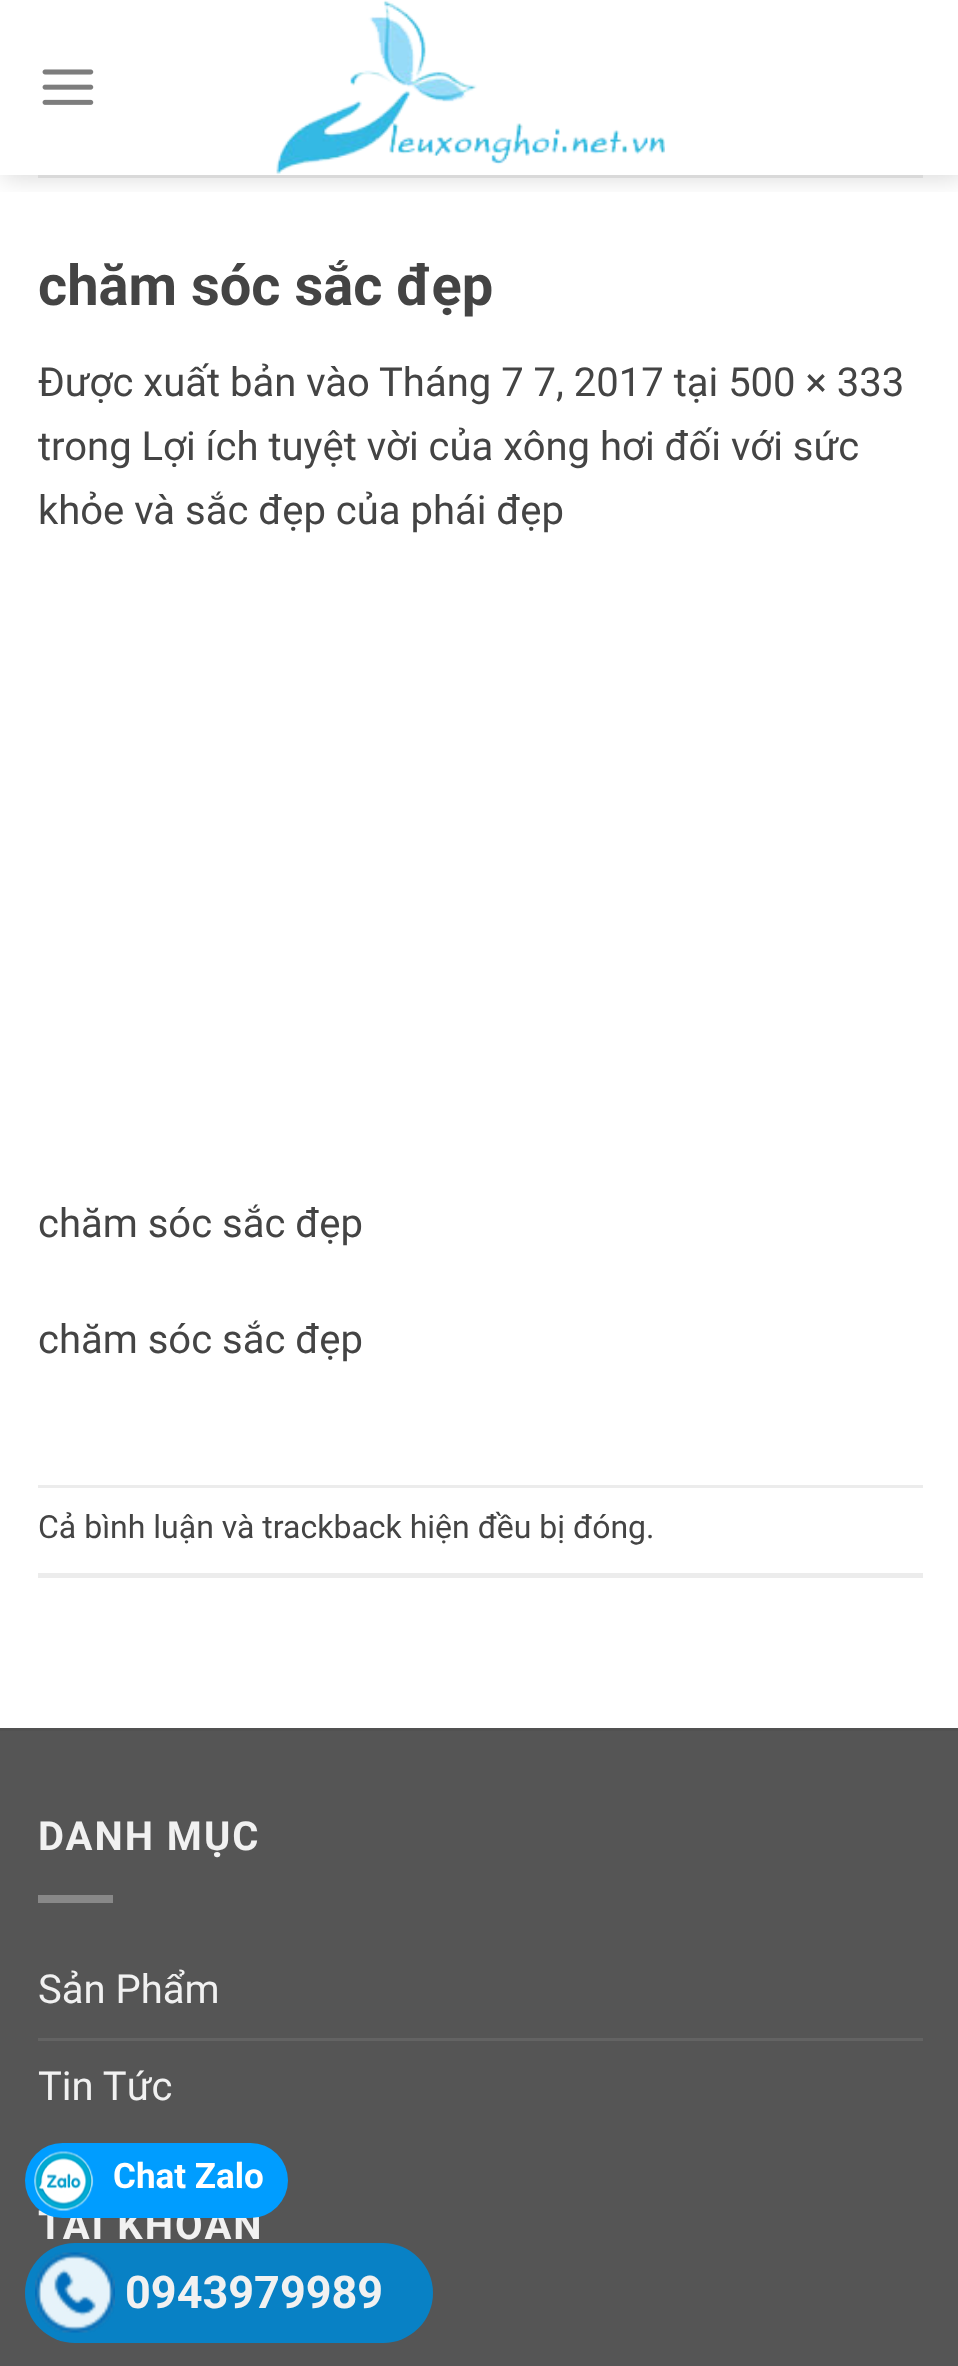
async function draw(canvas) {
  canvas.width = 958;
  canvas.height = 2366;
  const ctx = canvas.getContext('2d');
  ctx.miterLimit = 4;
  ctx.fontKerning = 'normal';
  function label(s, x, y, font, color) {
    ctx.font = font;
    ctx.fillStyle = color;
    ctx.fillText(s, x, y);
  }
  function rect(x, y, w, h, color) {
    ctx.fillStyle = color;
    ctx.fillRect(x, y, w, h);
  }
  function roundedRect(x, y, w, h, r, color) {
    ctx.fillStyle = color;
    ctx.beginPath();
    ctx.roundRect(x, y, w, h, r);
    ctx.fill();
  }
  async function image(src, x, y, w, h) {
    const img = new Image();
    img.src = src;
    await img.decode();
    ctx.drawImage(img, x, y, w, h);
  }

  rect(0, 0, 958, 2366, '#fff');
  ctx.save();
  ctx.beginPath();
  ctx.rect(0, 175, 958, 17);
  ctx.clip();
  ctx.fillStyle = '#00000026';
  ctx.filter = 'blur(12.5px)';
  ctx.beginPath();
  ctx.rect(3, 3, 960, 175);
  ctx.fill();
  ctx.filter = 'none';
  ctx.restore();
  await image('assets/img1.png', 42, 69, 52, 36);
  await image('assets/img2.png', 276, 0, 389, 175);
  rect(38, 175, 885, 3, '#d9d9d9');
  label('chăm sóc sắc đẹp', 38, 305, 'bold 56px Roboto', '#444');
  label('Được xuất bản vào', 38, 396, '40px Roboto', '#444');
  label('Tháng 7 7, 2017 tại 500 × 333', 379, 396, '40px Roboto', '#444');
  label('trong Lợi ích tuyệt vời của xông hơi đối với sức', 38, 460, '40px Roboto', '#444');
  label('khỏe và sắc đẹp của phái đẹp', 38, 524, '40px Roboto', '#444');
  label('chăm sóc sắc đẹp', 38, 1237, '40px Roboto', '#444');
  label('chăm sóc sắc đẹp', 38, 1353, '40px Roboto', '#444');
  rect(38, 1485, 885, 3, '#ececec');
  rect(38, 1573, 885, 5, '#ececec');
  label('Cả bình luận và trackback hiện đều bị đóng.', 38, 1538, '32px Roboto', '#444');
  rect(0, 1731, 958, 635, '#555');
  rect(0, 1728, 958, 3, '#515151');
  ctx.letterSpacing = '2px';
  label('DANH MỤC', 38, 1850, 'bold 40px Roboto', '#f1f1f1');
  rect(38, 1895, 75, 8, '#888');
  ctx.letterSpacing = '0px';
  label('Sản Phẩm', 38, 2003, '40px Roboto', '#f1f1f1');
  rect(38, 2038, 885, 3, '#636363');
  label('Tin Tức', 38, 2100, '40px Roboto', '#f1f1f1');
  ctx.letterSpacing = '2px';
  label('TÀI KHOẢN', 38, 2239, 'bold 40px Roboto', '#f1f1f1');
  roundedRect(25, 2143, 263, 75, 37.5, '#009dff');
  await image('assets/img3.png', 34, 2151, 60, 60);
  ctx.letterSpacing = '0px';
  label('Chat Zalo', 113, 2188, 'bold 35px Roboto', '#fff');
  roundedRect(25, 2243, 408, 100, 50, '#0086d1e6');
  await image('assets/img4.png', 35, 2252, 80, 81);
  label('0943979989', 125, 2308, 'bold 45px Roboto', '#f1f1f1');
}

draw(document.querySelector('canvas'));
